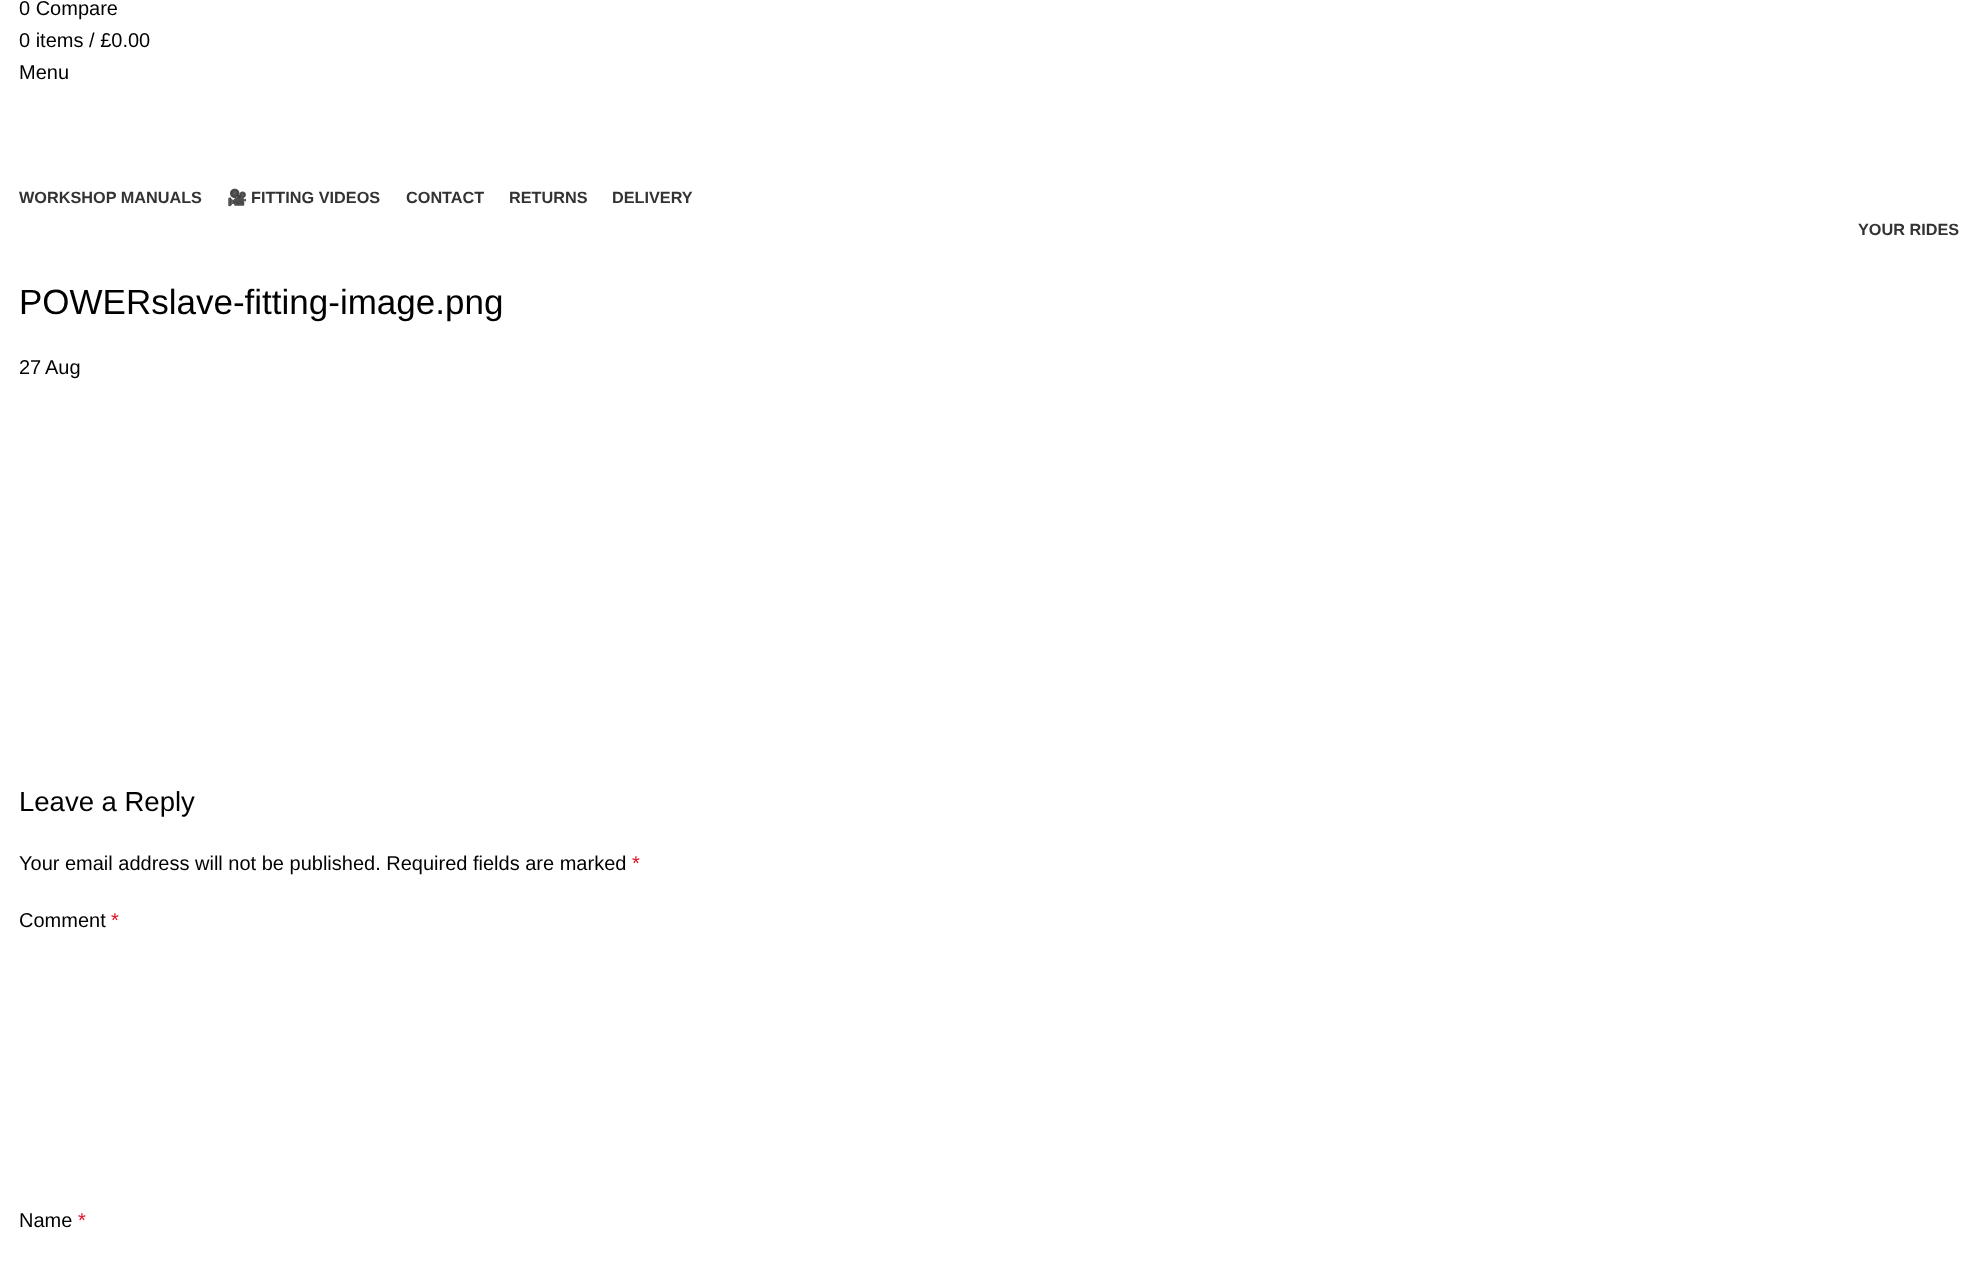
async function draw(canvas) {
  canvas.width = 1977;
  canvas.height = 1279;
  const ctx = canvas.getContext('2d');
  ctx.miterLimit = 4;
  ctx.fontKerning = 'normal';
  function label(s, x, y, font, color) {
    ctx.font = font;
    ctx.fillStyle = color;
    ctx.fillText(s, x, y);
  }
  function rect(x, y, w, h, color) {
    ctx.fillStyle = color;
    ctx.fillRect(x, y, w, h);
  }

  rect(0, 0, 1977, 1279, '#fff');
  label('0 Compare', 19, 15, '20px Liberation Sans', '#000');
  label('0 items / £0.00', 19, 47, '20px Liberation Sans', '#000');
  label('Menu', 19, 79, '20px Liberation Sans', '#000');
  label('WORKSHOP MANUALS', 19, 203, 'bold 16.25px Liberation Sans', '#333');
  label('🎥', 227, 203, 'bold 16.25px Noto Color Emoji', '#333');
  label('FITTING VIDEOS', 251, 203, 'bold 16.25px Liberation Sans', '#333');
  label('CONTACT', 406, 203, 'bold 16.25px Liberation Sans', '#333');
  label('RETURNS', 509, 203, 'bold 16.25px Liberation Sans', '#333');
  label('DELIVERY', 612, 203, 'bold 16.25px Liberation Sans', '#333');
  label('YOUR RIDES', 1858, 235, 'bold 16.25px Liberation Sans', '#333');
  label('POWERslave-fitting-image.png', 19, 314, '35px Liberation Sans', '#000');
  label('27', 19, 374, '20px Liberation Sans', '#000');
  label('Aug', 45, 374, '20px Liberation Sans', '#000');
  label('Leave a Reply', 19, 811, '27.5px Liberation Sans', '#000');
  label('Your email address will not be published. Required fields are marked', 19, 870, '20px Liberation Sans', '#000');
  label('*', 632, 870, '20px Liberation Sans', '#e01020');
  label('Comment', 19, 927, '20px Liberation Sans', '#000');
  label('*', 111, 927, '20px Liberation Sans', '#e01020');
  label('Name', 19, 1227, '20px Liberation Sans', '#000');
  label('*', 78, 1227, '20px Liberation Sans', '#e01020');
}

draw(document.querySelector('canvas'));
